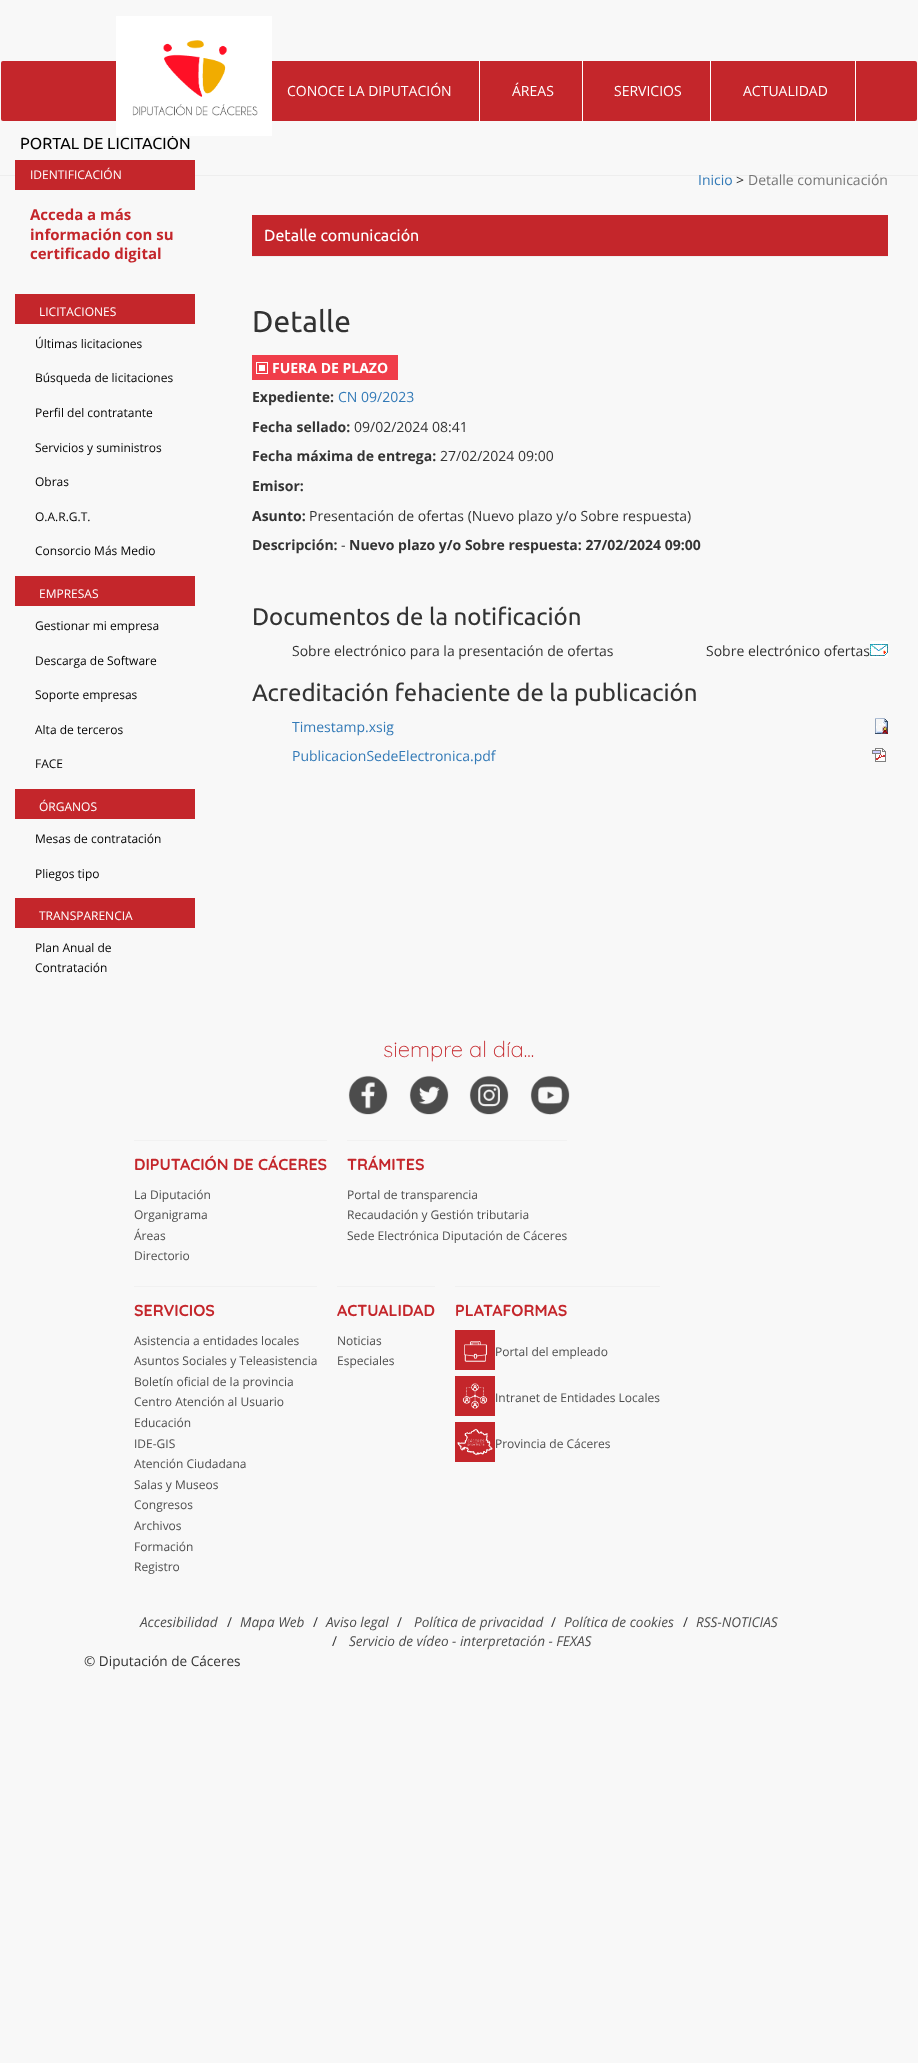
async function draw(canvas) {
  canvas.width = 918;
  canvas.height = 2063;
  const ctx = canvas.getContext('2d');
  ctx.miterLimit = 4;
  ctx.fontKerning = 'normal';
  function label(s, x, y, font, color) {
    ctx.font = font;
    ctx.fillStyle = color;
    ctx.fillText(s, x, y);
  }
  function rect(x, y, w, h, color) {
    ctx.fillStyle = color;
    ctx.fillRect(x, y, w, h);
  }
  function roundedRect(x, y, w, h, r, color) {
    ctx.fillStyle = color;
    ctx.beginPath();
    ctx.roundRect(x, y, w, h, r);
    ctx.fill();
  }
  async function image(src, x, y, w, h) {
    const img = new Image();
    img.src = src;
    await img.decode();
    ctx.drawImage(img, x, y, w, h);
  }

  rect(0, 0, 918, 2063, '#f8f8f8');
  roundedRect(1, 61, 916, 60, 2, '#c4262b');
  label('PORTAL DE LICITACIÓN', 20, 149, '16px Ubuntu', '#000');
  await image('assets/img1.png', 116, 16, 156, 120);
  rect(479, 61, 1, 60, '#fff');
  label('CONOCE LA DIPUTACIÓN', 287, 96, '14px Open Sans', '#fff');
  rect(582, 61, 1, 60, '#fff');
  label('ÁREAS', 512, 96, '14px Open Sans', '#fff');
  rect(710, 61, 1, 60, '#fff');
  label('SERVICIOS', 614, 96, '14px Open Sans', '#fff');
  rect(855, 61, 1, 60, '#fff');
  label('ACTUALIDAD', 743, 96, '14px Open Sans', '#fff');
  rect(0, 175, 918, 1, '#eee');
  rect(15, 160, 180, 30, '#c4262b');
  label('IDENTIFICACIÓN', 30, 179, '12px Open Sans', '#fff');
  label('Acceda a más', 30, 220, 'bold 15px Open Sans', '#c4262b');
  label('información con su', 30, 240, 'bold 15px Open Sans', '#c4262b');
  label('certificado digital', 30, 259, 'bold 15px Open Sans', '#c4262b');
  rect(15, 294, 180, 30, '#c4262b');
  label('LICITACIONES', 39, 316, '12px Open Sans', '#fff');
  label('Últimas licitaciones', 35, 348, '12px Open Sans', '#000');
  label('Búsqueda de licitaciones', 35, 382, '12px Open Sans', '#000');
  label('Perfil del contratante', 35, 417, '12px Open Sans', '#000');
  label('Servicios y suministros', 35, 452, '12px Open Sans', '#000');
  label('Obras', 35, 486, '12px Open Sans', '#000');
  label('O.A.R.G.T.', 35, 521, '12px Open Sans', '#000');
  label('Consorcio Más Medio', 35, 555, '12px Open Sans', '#000');
  rect(15, 576, 180, 30, '#c4262b');
  label('EMPRESAS', 39, 598, '12px Open Sans', '#fff');
  label('Gestionar mi empresa', 35, 630, '12px Open Sans', '#000');
  label('Descarga de Software', 35, 665, '12px Open Sans', '#000');
  label('Soporte empresas', 35, 699, '12px Open Sans', '#000');
  label('Alta de terceros', 35, 734, '12px Open Sans', '#000');
  label('FACE', 35, 768, '12px Open Sans', '#000');
  rect(15, 789, 180, 30, '#c4262b');
  label('ÓRGANOS', 39, 811, '12px Open Sans', '#fff');
  label('Mesas de contratación', 35, 843, '12px Open Sans', '#000');
  label('Pliegos tipo', 35, 878, '12px Open Sans', '#000');
  rect(15, 898, 180, 30, '#c4262b');
  label('TRANSPARENCIA', 39, 920, '12px Open Sans', '#fff');
  label('Plan Anual de', 35, 952, '12px Open Sans', '#000');
  label('Contratación', 35, 972, '12px Open Sans', '#000');
  label('Inicio', 698, 185, '14px Open Sans', '#337ab7');
  label('>', 736, 185, '14px Open Sans', '#333');
  label('Detalle comunicación', 748, 185, '14px Open Sans', '#777');
  rect(252, 215, 636, 41, '#c4262b');
  rect(252, 256, 636, 1, '#eee');
  label('Detalle comunicación', 264, 241, '16px Ubuntu', '#fff');
  label('Detalle', 252, 332, '30px Ubuntu', '#333');
  rect(252, 355, 146, 25, '#f03e4a');
  await image('assets/img2.png', 256, 362, 12, 12);
  label('FUERA DE PLAZO', 272, 373, 'bold 14px Open Sans', '#fff');
  label('Expediente:', 252, 402, 'bold 14px Open Sans', '#333');
  label('CN 09/2023', 338, 402, '14px Open Sans', '#337ab7');
  label('Fecha sellado:', 252, 432, 'bold 14px Open Sans', '#333');
  label('09/02/2024 08:41', 354, 432, '14px Open Sans', '#333');
  label('Fecha máxima de entrega:', 252, 461, 'bold 14px Open Sans', '#333');
  label('27/02/2024 09:00', 440, 461, '14px Open Sans', '#333');
  label('Emisor:', 252, 491, 'bold 14px Open Sans', '#333');
  label('Asunto:', 252, 521, 'bold 14px Open Sans', '#333');
  label('Presentación de ofertas (Nuevo plazo y/o Sobre respuesta)', 309, 521, '14px Open Sans', '#333');
  label('Descripción:', 252, 550, 'bold 14px Open Sans', '#333');
  label('-', 341, 550, '14px Open Sans', '#333');
  label('Nuevo plazo y/o Sobre respuesta: 27/02/2024 09:00', 349, 550, 'bold 14px Open Sans', '#333');
  label('Documentos de la notificación', 252, 625, '24px Ubuntu', '#333');
  label('Sobre electrónico para la presentación de ofertas', 292, 656, '14px Open Sans', '#333');
  label('Sobre electrónico ofertas', 706, 656, '14px Open Sans', '#333');
  await image('assets/img3.png', 870, 641, 18, 17);
  label('Acreditación fehaciente de la publicación', 252, 701, '24px Ubuntu', '#333');
  label('Timestamp.xsig', 292, 732, '14px Open Sans', '#337ab7');
  await image('assets/img4.png', 875, 718, 13, 16);
  label('PublicacionSedeElectronica.pdf', 292, 761, '14px Open Sans', '#337ab7');
  await image('assets/img5.png', 872, 748, 14, 14);
  label('siempre al día...', 383, 1057, '300 22px Quicksand', '#c4262b');
  await image('assets/img6.png', 348, 1075, 40, 40);
  await image('assets/img7.png', 409, 1075, 40, 40);
  await image('assets/img8.png', 469, 1075, 40, 40);
  await image('assets/img9.png', 530, 1075, 40, 40);
  rect(134, 1140, 193, 1, '#f1f1f1');
  label('DIPUTACIÓN DE CÁCERES', 134, 1170, 'bold 16px Quicksand', '#c4262b');
  label('La Diputación', 134, 1199, '12px Open Sans', '#4d4d4d');
  label('Organigrama', 134, 1219, '12px Open Sans', '#4d4d4d');
  label('Áreas', 134, 1240, '12px Open Sans', '#4d4d4d');
  label('Directorio', 134, 1260, '12px Open Sans', '#4d4d4d');
  rect(347, 1140, 220, 1, '#f1f1f1');
  label('TRÁMITES', 347, 1170, 'bold 16px Quicksand', '#c4262b');
  label('Portal de transparencia', 347, 1199, '12px Open Sans', '#4d4d4d');
  label('Recaudación y Gestión tributaria', 347, 1219, '12px Open Sans', '#4d4d4d');
  label('Sede Electrónica Diputación de Cáceres', 347, 1240, '12px Open Sans', '#4d4d4d');
  rect(134, 1286, 183, 1, '#f1f1f1');
  label('SERVICIOS', 134, 1316, 'bold 16px Quicksand', '#c4262b');
  label('Asistencia a entidades locales', 134, 1345, '12px Open Sans', '#4d4d4d');
  label('Asuntos Sociales y Teleasistencia', 134, 1365, '12px Open Sans', '#4d4d4d');
  label('Boletín oficial de la provincia', 134, 1386, '12px Open Sans', '#4d4d4d');
  label('Centro Atención al Usuario', 134, 1406, '12px Open Sans', '#4d4d4d');
  label('Educación', 134, 1427, '12px Open Sans', '#4d4d4d');
  label('IDE-GIS', 134, 1448, '12px Open Sans', '#4d4d4d');
  label('Atención Ciudadana', 134, 1468, '12px Open Sans', '#4d4d4d');
  label('Salas y Museos', 134, 1489, '12px Open Sans', '#4d4d4d');
  label('Congresos', 134, 1509, '12px Open Sans', '#4d4d4d');
  label('Archivos', 134, 1530, '12px Open Sans', '#4d4d4d');
  label('Formación', 134, 1551, '12px Open Sans', '#4d4d4d');
  label('Registro', 134, 1571, '12px Open Sans', '#4d4d4d');
  rect(337, 1286, 98, 1, '#f1f1f1');
  label('ACTUALIDAD', 337, 1316, 'bold 16px Quicksand', '#c4262b');
  label('Noticias', 337, 1345, '12px Open Sans', '#4d4d4d');
  label('Especiales', 337, 1365, '12px Open Sans', '#4d4d4d');
  rect(455, 1286, 205, 1, '#f1f1f1');
  label('PLATAFORMAS', 455, 1316, 'bold 16px Quicksand', '#c4262b');
  rect(455, 1330, 40, 40, '#c4262b');
  await image('assets/img10.png', 464, 1341, 24, 21);
  label('Portal del empleado', 495, 1356, '12px Open Sans', '#4d4d4d');
  rect(455, 1376, 40, 40, '#c4262b');
  await image('assets/img11.png', 462, 1383, 26, 26);
  label('Intranet de Entidades Locales', 495, 1402, '12px Open Sans', '#4d4d4d');
  rect(455, 1422, 40, 40, '#c4262b');
  await image('assets/img12.png', 457, 1428, 36, 28);
  label('Provincia de Cáceres', 495, 1448, '12px Open Sans', '#4d4d4d');
  label('Accesibilidad', 140, 1627, 'italic 13.6px Open Sans', '#4d4d4d');
  label('/', 227, 1627, '13.6px Open Sans', '#333');
  label('Mapa Web', 240, 1627, 'italic 13.6px Open Sans', '#4d4d4d');
  label('/', 313, 1627, '13.6px Open Sans', '#333');
  label('Aviso legal', 326, 1627, 'italic 13.6px Open Sans', '#4d4d4d');
  label('/', 397, 1627, '13.6px Open Sans', '#333');
  label('Política de privacidad', 414, 1627, 'italic 13.6px Open Sans', '#4d4d4d');
  label('/', 551, 1627, '13.6px Open Sans', '#333');
  label('Política de cookies', 564, 1627, 'italic 13.6px Open Sans', '#4d4d4d');
  label('/', 683, 1627, '13.6px Open Sans', '#333');
  label('RSS-NOTICIAS', 696, 1627, 'italic 13.6px Open Sans', '#4d4d4d');
  label('/', 332, 1646, '13.6px Open Sans', '#333');
  label('Servicio de vídeo - interpretación - FEXAS', 349, 1646, 'italic 13.6px Open Sans', '#4d4d4d');
  label('© Diputación de Cáceres', 84, 1666, '13.6px Open Sans', '#333');
}

draw(document.querySelector('canvas'));
